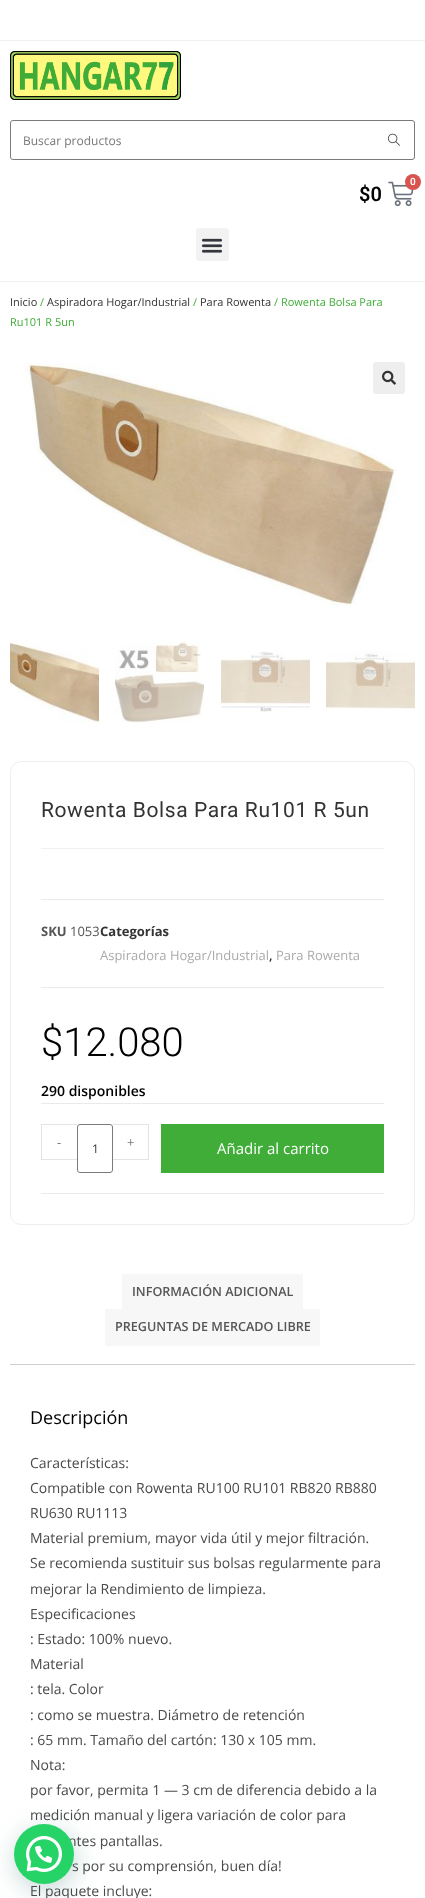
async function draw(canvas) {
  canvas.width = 425;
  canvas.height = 1898;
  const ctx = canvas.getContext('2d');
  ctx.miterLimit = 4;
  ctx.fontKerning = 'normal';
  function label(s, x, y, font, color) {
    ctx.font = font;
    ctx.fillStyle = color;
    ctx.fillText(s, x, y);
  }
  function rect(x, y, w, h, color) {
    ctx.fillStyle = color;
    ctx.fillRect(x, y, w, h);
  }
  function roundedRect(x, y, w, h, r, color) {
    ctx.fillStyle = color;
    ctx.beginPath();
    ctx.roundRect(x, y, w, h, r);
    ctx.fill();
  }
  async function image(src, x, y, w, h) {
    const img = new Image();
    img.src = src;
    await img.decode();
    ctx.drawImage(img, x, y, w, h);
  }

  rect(0, 0, 425, 1898, '#fff');
  rect(0, 40, 425, 1, '#f1f1f1');
  rect(0, 281, 425, 1, '#f1f1f1');
  await image('assets/img1.png', 10, 51, 171, 49);
  ctx.beginPath();
  ctx.roundRect(10.5, 120.5, 404, 39, 2.5);
  ctx.strokeStyle = '#7d7979';
  ctx.stroke();
  label('Buscar productos', 23, 145, '12px Open Sans', '#777');
  await image('assets/img2.png', 388, 133, 12, 13);
  await image('assets/img3.png', 388, 181, 26, 26);
  ctx.fillStyle = '#d9534f';
  ctx.beginPath();
  ctx.arc(413, 182, 8, 0, 2 * Math.PI);
  ctx.fill();
  label('0', 410, 185, '600 10px Roboto', '#fff');
  label('$0', 359, 201, '600 20px Roboto', '#000');
  roundedRect(196, 228, 33, 33, 3, '#f2f2f2');
  await image('assets/img4.png', 201, 238, 22, 15);
  label('Inicio', 10, 306, '11px Open Sans', '#333');
  label('/', 40, 306, '11px Open Sans', '#3fad38');
  label('Aspiradora Hogar/Industrial', 47, 306, '11px Open Sans', '#333');
  label('/', 193, 306, '11px Open Sans', '#3fad38');
  label('Para Rowenta', 200, 306, '11px Open Sans', '#333');
  label('/ Rowenta Bolsa Para', 274, 306, '11px Open Sans', '#3fad38');
  label('Ru101 R 5un', 10, 326, '11px Open Sans', '#3fad38');
  await image('assets/img6.png', 23, 363, 374, 243);
  roundedRect(373, 362, 32, 32, 3, '#eee');
  await image('assets/img5.png', 382, 370, 14, 15);
  await image('assets/img7.png', 10, 637, 89, 86);
  await image('assets/img8.png', 115, 637, 89, 86);
  await image('assets/img9.png', 221, 651, 89, 61);
  await image('assets/img10.png', 326, 651, 89, 58);
  ctx.beginPath();
  ctx.roundRect(10.5, 761.5, 404, 463, 10.5);
  ctx.strokeStyle = '#eee';
  ctx.stroke();
  rect(41, 848, 343, 1, '#f1f1f1');
  ctx.letterSpacing = '0.6px';
  label('Rowenta Bolsa Para Ru101 R 5un', 41, 817, '21px Roboto', '#333');
  rect(41, 899, 343, 1, '#eaeaea');
  rect(41, 987, 343, 1, '#eaeaea');
  ctx.letterSpacing = '0px';
  label('SKU', 41, 936, 'bold 13px Open Sans', '#555');
  label('1053', 70, 936, '13px Open Sans', '#555');
  label('Categorías', 100, 936, 'bold 13px Open Sans', '#333');
  label('Aspiradora Hogar/Industrial', 100, 960, '13px Open Sans', '#ababab');
  label(',', 269, 960, '600 13px Open Sans', '#333');
  label('Para Rowenta', 276, 960, '13px Open Sans', '#ababab');
  label('$12.080', 41, 1056, '300 40px Roboto', '#000');
  label('290 disponibles', 41, 1096, '600 14px Open Sans', '#000');
  rect(41, 1103, 343, 1, '#eaeaea');
  rect(41, 1193, 343, 1, '#eaeaea');
  rect(41, 1124, 36, 1, '#e4e4e4');
  rect(41, 1159, 36, 1, '#e4e4e4');
  rect(41, 1124, 1, 36, '#e4e4e4');
  label('-', 57, 1147, '13px Open Sans', '#777');
  rect(113, 1124, 36, 1, '#e4e4e4');
  rect(148, 1124, 1, 36, '#e4e4e4');
  rect(113, 1159, 36, 1, '#e4e4e4');
  label('+', 127, 1147, '13px Open Sans', '#777');
  ctx.beginPath();
  ctx.roundRect(77.5, 1124.5, 35, 48, 2.5);
  ctx.strokeStyle = '#7d7979';
  ctx.stroke();
  label('1', 92, 1153, '12px Open Sans', '#333');
  rect(161, 1124, 223, 49, '#3fad38');
  label('Añadir al carrito', 217, 1154, '15px Open Sans', '#fff');
  rect(122, 1274, 181, 35, '#f7f7f7');
  label('INFORMACIÓN ADICIONAL', 132, 1296, '600 12.6px Open Sans', '#555');
  rect(105, 1309, 215, 37, '#f7f7f7');
  label('PREGUNTAS DE MERCADO LIBRE', 115, 1331, '600 12.6px Open Sans', '#555');
  rect(10, 1364, 405, 1, '#d3ced2');
  label('Descripción', 30, 1424, '18px Open Sans', '#000');
  label('Características:', 30, 1468, '14px Open Sans', '#4a4a4a');
  label('Compatible con Rowenta RU100 RU101 RB820 RB880', 30, 1493, '14px Open Sans', '#4a4a4a');
  label('RU630 RU1113', 30, 1518, '14px Open Sans', '#4a4a4a');
  label('Material premium, mayor vida útil y mejor filtración.', 30, 1543, '14px Open Sans', '#4a4a4a');
  label('Se recomienda sustituir sus bolsas regularmente para', 30, 1568, '14px Open Sans', '#4a4a4a');
  label('mejorar la Rendimiento de limpieza.', 30, 1594, '14px Open Sans', '#4a4a4a');
  label('Especificaciones', 30, 1619, '14px Open Sans', '#4a4a4a');
  label(': Estado: 100% nuevo.', 30, 1644, '14px Open Sans', '#4a4a4a');
  label('Material', 30, 1669, '14px Open Sans', '#4a4a4a');
  label(': tela. Color', 30, 1694, '14px Open Sans', '#4a4a4a');
  label(': como se muestra. Diámetro de retención', 30, 1720, '14px Open Sans', '#4a4a4a');
  label(': 65 mm. Tamaño del cartón: 130 x 105 mm.', 30, 1745, '14px Open Sans', '#4a4a4a');
  label('Nota:', 30, 1770, '14px Open Sans', '#4a4a4a');
  label('por favor, permita 1 — 3 cm de diferencia debido a la', 30, 1795, '14px Open Sans', '#4a4a4a');
  label('medición manual y ligera variación de color para', 30, 1820, '14px Open Sans', '#4a4a4a');
  label('ntes pantallas.', 68, 1846, '14px Open Sans', '#4a4a4a');
  label('s por su comprensión, buen día!', 72, 1871, '14px Open Sans', '#4a4a4a');
  label('El paquete incluye:', 30, 1896, '14px Open Sans', '#4a4a4a');
  ctx.fillStyle = '#075e543d';
  ctx.filter = 'blur(12px)';
  ctx.beginPath();
  ctx.roundRect(15, 1830, 60, 60, 30);
  ctx.fill();
  ctx.filter = 'none';
  ctx.fillStyle = '#25d366';
  ctx.beginPath();
  ctx.arc(44, 1854, 30, 0, 2 * Math.PI);
  ctx.fill();
  await image('assets/img11.png', 26, 1836, 36, 36);
}

draw(document.querySelector('canvas'));
